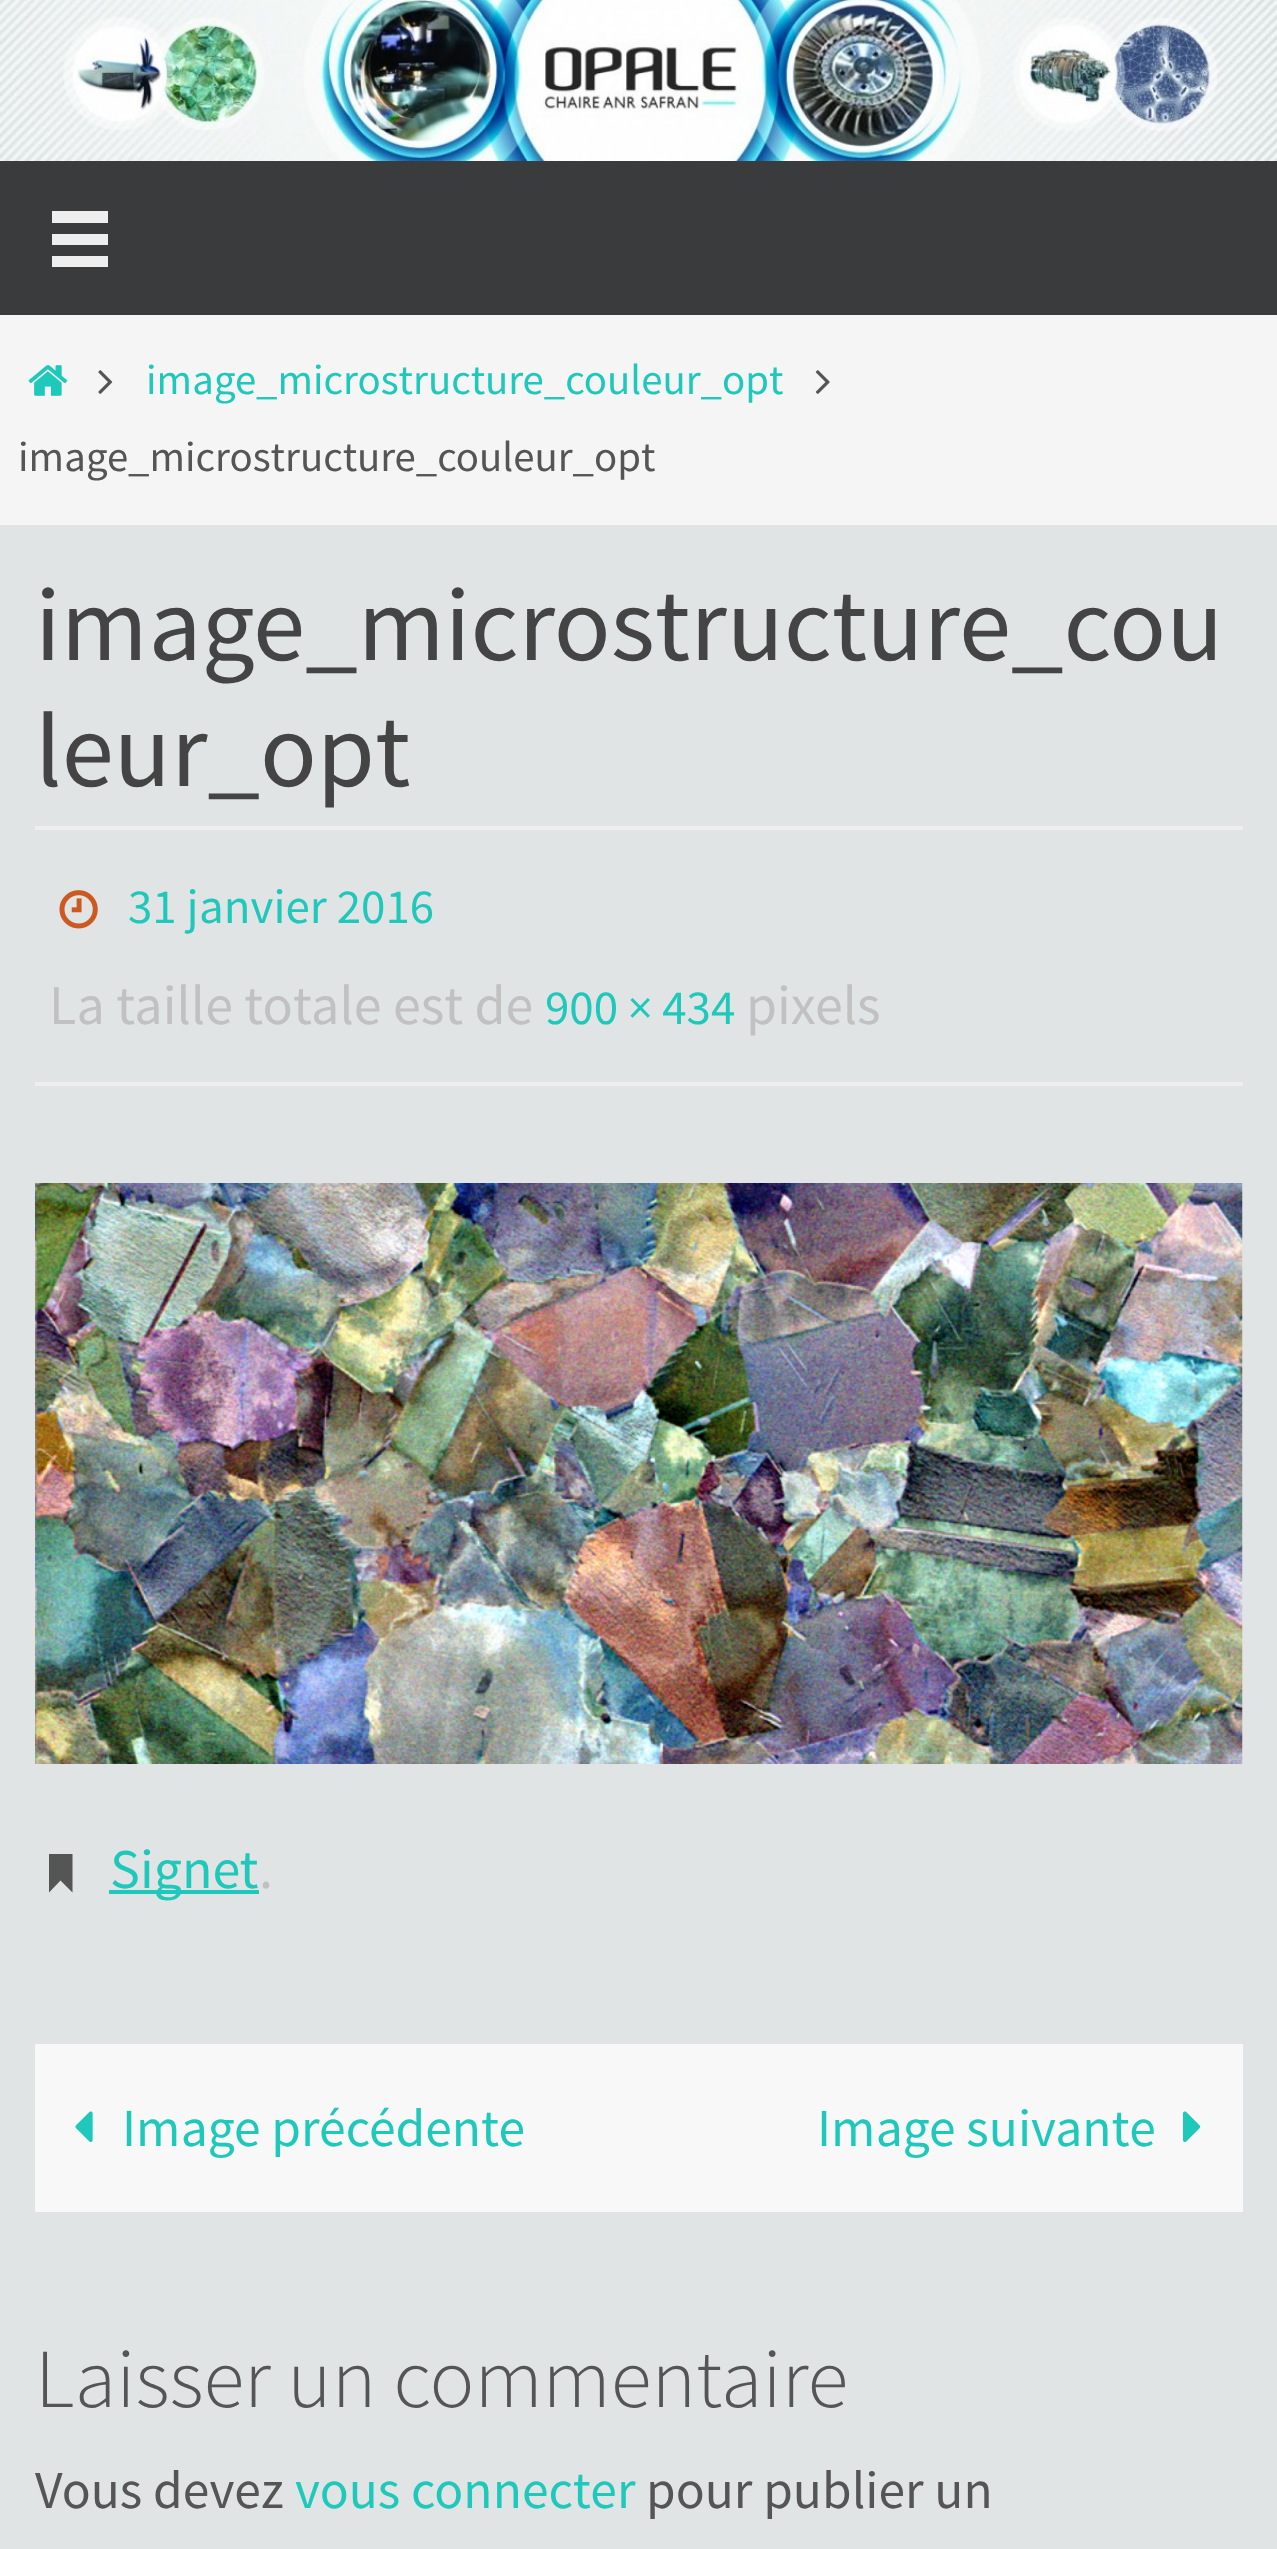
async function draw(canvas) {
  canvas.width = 1277;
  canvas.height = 2549;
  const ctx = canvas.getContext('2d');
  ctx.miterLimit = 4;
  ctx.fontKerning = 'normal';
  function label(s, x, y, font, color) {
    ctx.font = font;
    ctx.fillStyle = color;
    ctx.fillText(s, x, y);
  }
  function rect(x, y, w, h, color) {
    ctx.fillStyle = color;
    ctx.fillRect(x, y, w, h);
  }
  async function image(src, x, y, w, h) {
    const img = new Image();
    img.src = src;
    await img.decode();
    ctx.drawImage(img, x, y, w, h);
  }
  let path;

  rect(0, 0, 1277, 2549, '#e0e4e5');
  await image('assets/img1.png', 0, 0, 1277, 161);
  rect(0, 161, 1277, 154, '#3a3b3d');
  ctx.fillStyle = '#eee';
  path = new Path2D('M52 211V223H108V211ZM52 234V245H108V234ZM52 256V267H108V256Z');
  ctx.fill(path);
  rect(0, 315, 1277, 210, '#f5f5f5');
  await image('assets/img2.png', 28, 365, 40, 31);
  await image('assets/img3.png', 98, 370, 15, 24);
  label('image_microstructure_couleur_opt', 146, 394, '42.8px Source Sans Pro', '#1ec8bb');
  await image('assets/img4.png', 815, 370, 15, 24);
  label('image_microstructure_couleur_opt', 18, 471, '42.8px Source Sans Pro', '#555');
  label('image_microstructure_cou', 35, 660, '105px Source Sans Pro', '#444');
  label('leur_opt', 35, 786, '105px Source Sans Pro', '#444');
  rect(35, 826, 1208, 4, '#eee');
  rect(35, 1082, 1208, 4, '#eee');
  await image('assets/img5.png', 59, 890, 39, 39);
  label('31 janvier 2016', 128, 923, '49px Source Sans Pro', '#1ec8bb');
  label('La taille totale est de', 49, 1024, '56px Source Sans Pro', '#c1c1c1');
  label('900 × 434', 545, 1024, '49px Source Sans Pro', '#1ec8bb');
  label('pixels', 746, 1024, '56px Source Sans Pro', '#c1c1c1');
  await image('assets/img6.png', 35, 1183, 1208, 581);
  ctx.fillStyle = '#555';
  path = new Path2D('M49 1888.5V1854H72.5V1892.5L60.5 1880.5L49 1892.5Z');
  ctx.fill(path);
  rect(109, 1890, 150, 4, '#1ec8bb');
  label('Signet', 110, 1888, '56px Source Sans Pro', '#1ec8bb');
  label('.', 259, 1888, '56px Source Sans Pro', '#c1c1c1');
  rect(35, 2044, 1208, 168, '#f8f8f8');
  await image('assets/img7.png', 75, 2111, 18, 32);
  label('Image précédente', 122, 2146, '53.5px Source Sans Pro', '#1ec8bb');
  label('Image suivante', 817, 2146, '53.5px Source Sans Pro', '#1ec8bb');
  await image('assets/img8.png', 1183, 2111, 18, 31);
  label('Laisser un commentaire', 35, 2407, '300 84px Source Sans Pro', '#555');
  label('Vous devez', 35, 2508, '53.5px Source Sans Pro', '#555');
  label('vous connecter', 295, 2508, '53.5px Source Sans Pro', '#1ec8bb');
  label('pour publier un', 646, 2508, '53.5px Source Sans Pro', '#555');
}

draw(document.querySelector('canvas'));
